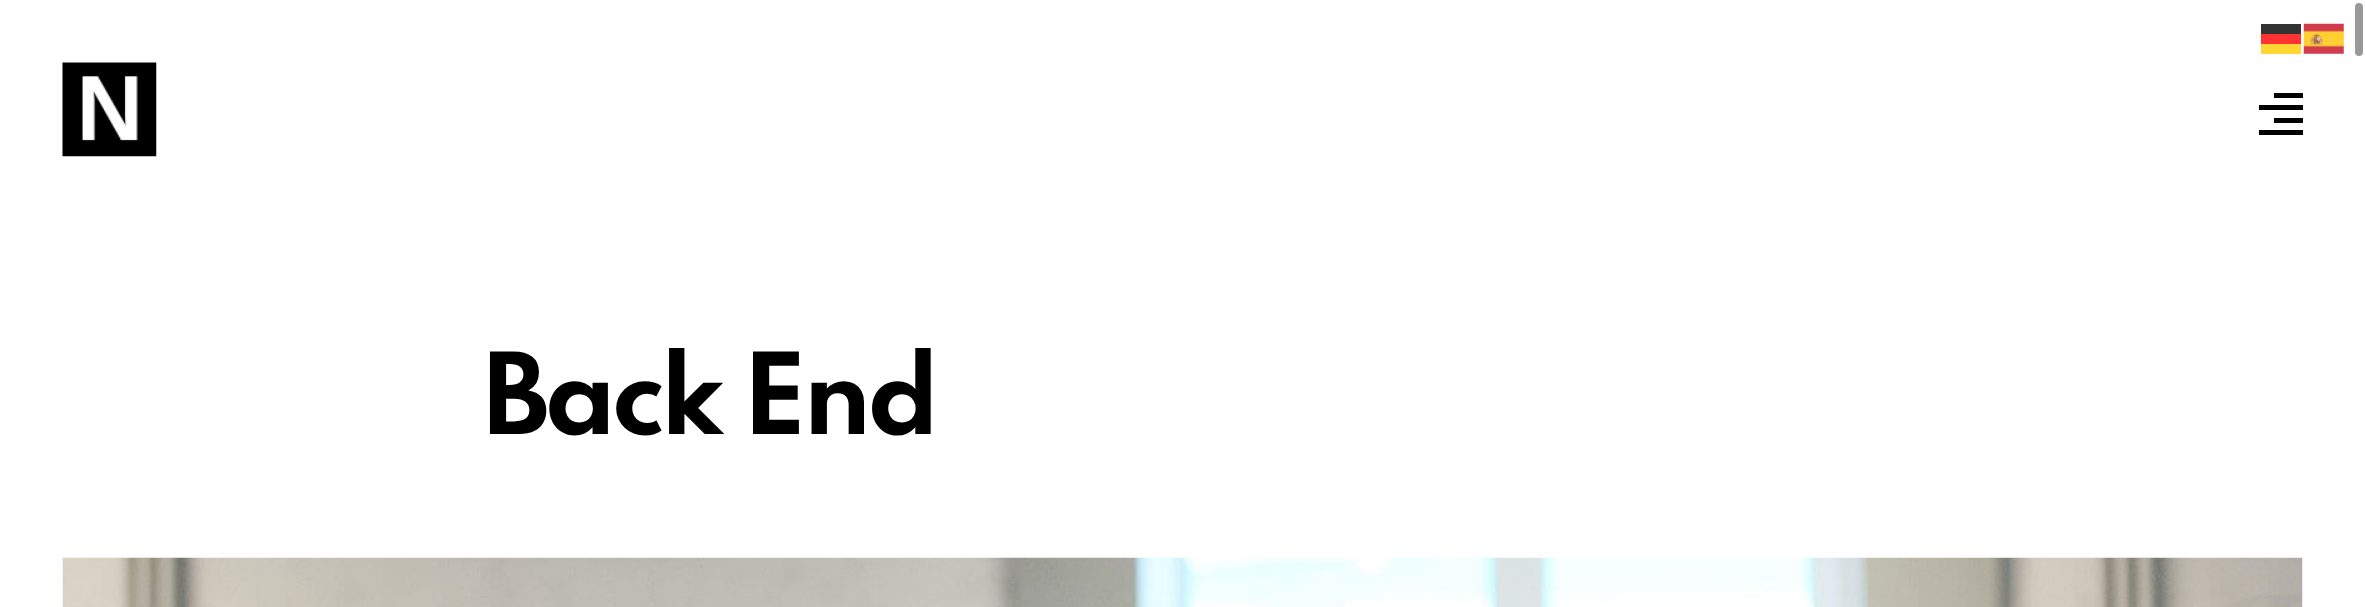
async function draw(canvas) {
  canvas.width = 2365;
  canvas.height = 607;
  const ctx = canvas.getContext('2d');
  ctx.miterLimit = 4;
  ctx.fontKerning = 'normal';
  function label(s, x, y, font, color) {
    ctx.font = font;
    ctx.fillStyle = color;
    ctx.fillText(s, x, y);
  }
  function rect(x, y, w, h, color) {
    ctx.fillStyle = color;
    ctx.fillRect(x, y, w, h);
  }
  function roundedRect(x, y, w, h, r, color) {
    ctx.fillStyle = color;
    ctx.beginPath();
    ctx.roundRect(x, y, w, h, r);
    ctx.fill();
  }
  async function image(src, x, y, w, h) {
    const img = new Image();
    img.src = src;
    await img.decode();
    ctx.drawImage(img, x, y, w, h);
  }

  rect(0, 0, 2365, 607, '#fff');
  roundedRect(2355, 3, 8, 53, 4, '#999');
  rect(2261, 24, 40, 10, '#333');
  await image('assets/img1.png', 2303, 23, 41, 31);
  rect(2261, 34, 40, 10, '#f33');
  rect(2261, 44, 40, 10, '#ffd633');
  await image('assets/img2.png', 62, 62, 95, 95);
  rect(2274, 93, 29, 5, '#000');
  rect(2259, 105, 44, 5, '#000');
  rect(2274, 118, 29, 5, '#000');
  rect(2259, 130, 44, 5, '#000');
  ctx.letterSpacing = '-5px';
  label('Back End', 483, 434, 'bold 100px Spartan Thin', '#000');
  await image('assets/img3.png', 62, 557, 2241, 50);
}

draw(document.querySelector('canvas'));
